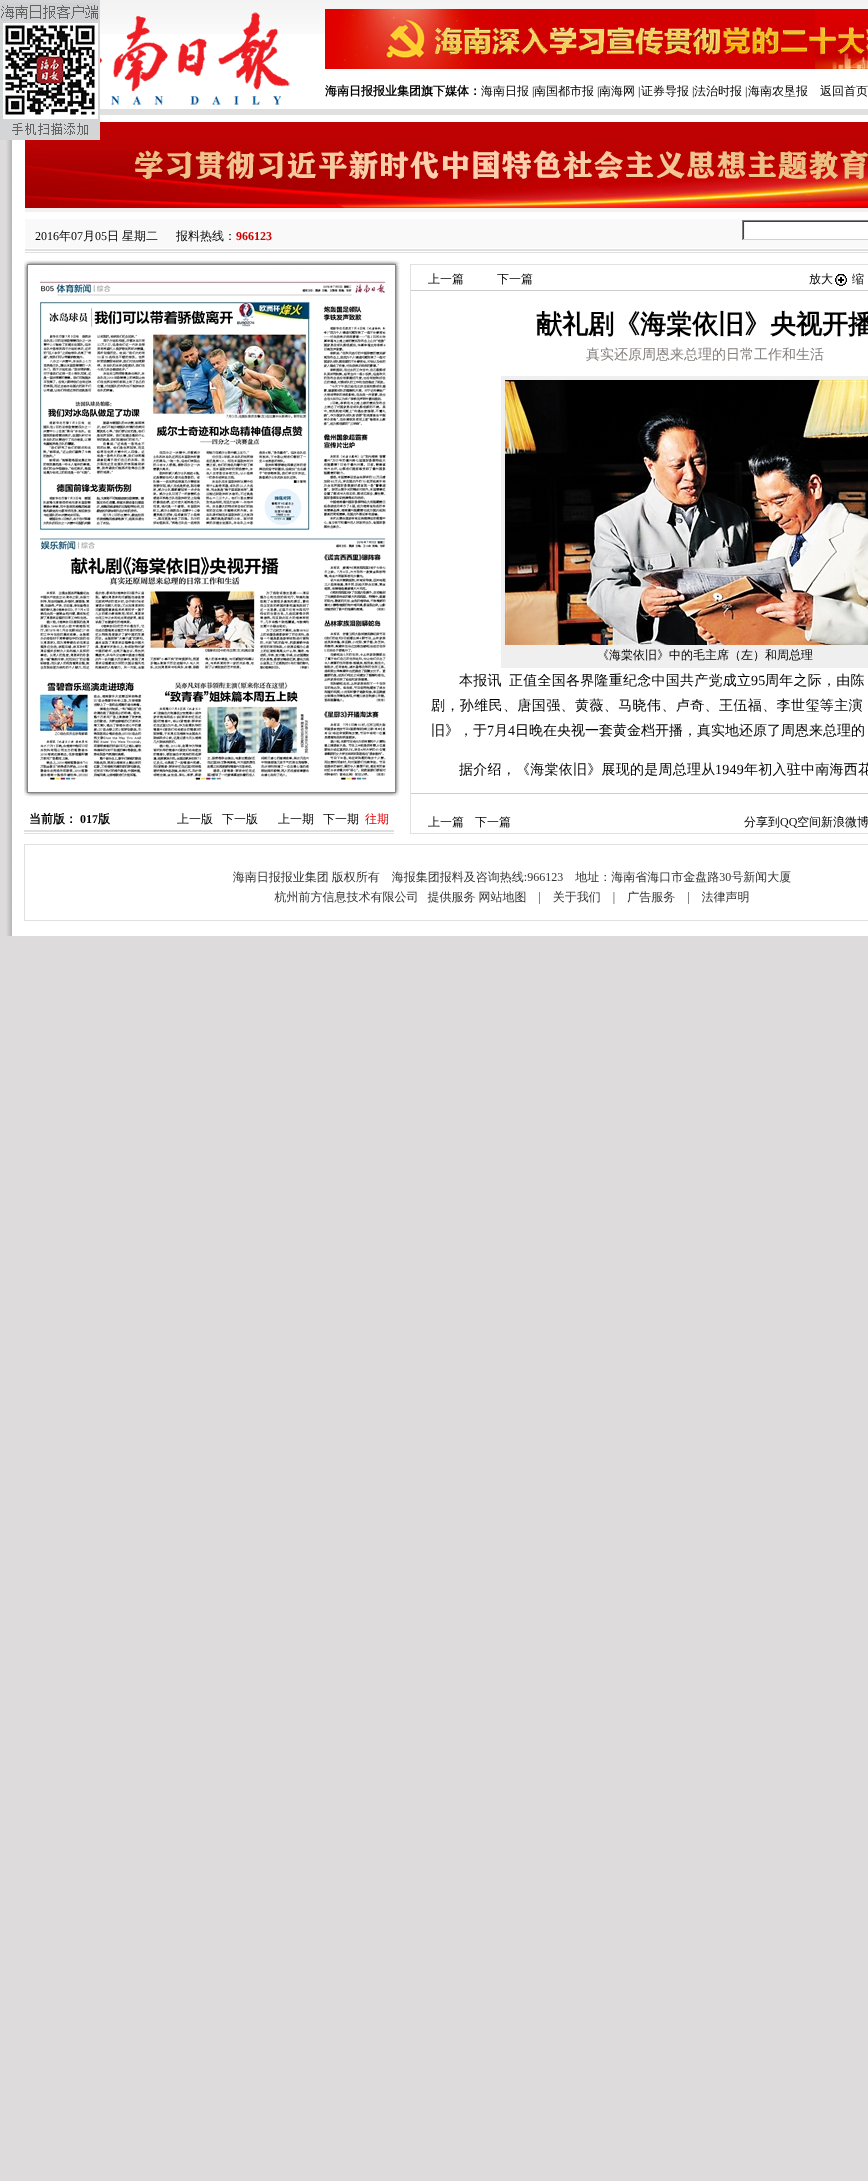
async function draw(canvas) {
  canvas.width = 868;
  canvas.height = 2181;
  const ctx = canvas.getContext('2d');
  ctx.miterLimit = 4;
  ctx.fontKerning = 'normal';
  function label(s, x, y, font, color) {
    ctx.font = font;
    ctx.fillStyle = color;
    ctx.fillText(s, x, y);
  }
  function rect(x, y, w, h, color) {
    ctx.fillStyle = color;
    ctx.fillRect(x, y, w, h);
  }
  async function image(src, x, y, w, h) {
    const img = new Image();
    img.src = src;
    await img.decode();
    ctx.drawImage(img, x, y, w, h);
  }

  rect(0, 0, 868, 2181, '#dddbdb');
  rect(12, 34, 856, 902, '#fff');
  await image('assets/img6.png', 25, 122, 843, 90);
  await image('assets/img1.png', 0, 0, 100, 140);
  await image('assets/img2.png', 0, 140, 12, 796);
  await image('assets/img3.png', 100, 0, 768, 34);
  await image('assets/img4.png', 100, 12, 190, 93);
  await image('assets/img5.png', 325, 9, 543, 60);
  label('海南日报报业集团旗下媒体：', 325, 95, 'bold 12px WenQuanYi Zen Hei', '#000');
  label('海南日报', 481, 95, '500 12px WenQuanYi Zen Hei', '#000');
  label('|‌', 532, 95, '12px Liberation Serif', '#000');
  label('南国都市报', 534, 95, '500 12px WenQuanYi Zen Hei', '#000');
  label('|‌', 597, 95, '12px Liberation Serif', '#000');
  label('南海网', 599, 95, '500 12px WenQuanYi Zen Hei', '#000');
  label('|‌', 638, 95, '12px Liberation Serif', '#000');
  label('证券导报', 641, 95, '500 12px WenQuanYi Zen Hei', '#000');
  label('|‌', 692, 95, '12px Liberation Serif', '#000');
  label('法治时报', 694, 95, '500 12px WenQuanYi Zen Hei', '#000');
  label('|‌', 745, 95, '12px Liberation Serif', '#000');
  label('海南农垦报', 748, 95, '500 12px WenQuanYi Zen Hei', '#000');
  label('返回首页', 820, 95, '500 12px WenQuanYi Zen Hei', '#000');
  rect(100, 109, 768, 6, '#e0e0e0');
  await image('assets/img7.png', 25, 219, 843, 34);
  label('2016', 35, 240, '12px Liberation Serif', '#000');
  label('年', 59, 240, '500 12px WenQuanYi Zen Hei', '#000');
  label('07', 71, 240, '12px Liberation Serif', '#000');
  label('月', 83, 240, '500 12px WenQuanYi Zen Hei', '#000');
  label('05', 95, 240, '12px Liberation Serif', '#000');
  label('日', 107, 240, '500 12px WenQuanYi Zen Hei', '#000');
  label('星期二', 122, 240, '500 12px WenQuanYi Zen Hei', '#000');
  label('报料热线：', 176, 240, '500 12px WenQuanYi Zen Hei', '#000');
  label('966123', 236, 240, 'bold 12px Liberation Serif', '#c00');
  await image('assets/img8.png', 742, 220, 126, 20);
  await image('assets/img9.png', 24, 260, 376, 4);
  await image('assets/img10.png', 24, 264, 376, 6);
  await image('assets/img11.png', 24, 270, 376, 520);
  await image('assets/img12.png', 39, 280, 347, 500);
  await image('assets/img13.png', 24, 790, 376, 7);
  await image('assets/img14.png', 24, 830, 370, 4);
  label('当前版：', 29, 823, 'bold 12px WenQuanYi Zen Hei', '#000');
  label('017', 80, 823, 'bold 12px Liberation Serif', '#000');
  label('版', 98, 823, 'bold 12px WenQuanYi Zen Hei', '#000');
  label('上一版', 177, 823, '500 12px WenQuanYi Zen Hei', '#000');
  label('下一版', 222, 823, '500 12px WenQuanYi Zen Hei', '#000');
  label('上一期', 278, 823, '500 12px WenQuanYi Zen Hei', '#000');
  label('下一期', 323, 823, '500 12px WenQuanYi Zen Hei', '#000');
  label('往期', 365, 823, '500 12px WenQuanYi Zen Hei', '#e20203');
  ctx.strokeStyle = '#e1e1e1';
  ctx.strokeRect(410.5, 264.5, 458, 569);
  rect(411, 290, 457, 1, '#ccc');
  label('上一篇', 428, 283, '500 12px WenQuanYi Zen Hei', '#000');
  label('下一篇', 497, 283, '500 12px WenQuanYi Zen Hei', '#000');
  label('放大', 809, 283, '500 12px WenQuanYi Zen Hei', '#000');
  await image('assets/img15.png', 835, 274, 12, 12);
  label('缩', 852, 283, '500 12px WenQuanYi Zen Hei', '#000');
  label('献礼剧《海棠依旧》央视开播', 536, 333, 'bold 26px WenQuanYi Zen Hei', '#000');
  label('真实还原周恩来总理的日常工作和生活', 586, 359, '500 14px WenQuanYi Zen Hei', '#827e7b');
  rect(501, 376, 367, 292, '#efefef');
  await image('assets/img16.png', 505, 380, 363, 265);
  label('《海棠依旧》中的毛主席（左）和周总理', 597, 659, '500 12px WenQuanYi Zen Hei', '#000');
  ctx.letterSpacing = '0.25px';
  label('本报讯', 459, 685, '500 14px WenQuanYi Zen Hei', '#000');
  label('正值全国各界隆重纪念中国共产党成立', 509, 685, '500 14px WenQuanYi Zen Hei', '#000');
  label('95', 751, 685, '14px Liberation Serif', '#000');
  label('周年之际，由陈', 765, 685, '500 14px WenQuanYi Zen Hei', '#000');
  ctx.letterSpacing = '0.4px';
  label('剧，孙维民、唐国强、黄薇、马晓伟、卢奇、王伍福、李世玺等主演', 431, 710, '500 14px WenQuanYi Zen Hei', '#000');
  ctx.letterSpacing = '0px';
  label('旧》，于', 431, 735, '500 14px WenQuanYi Zen Hei', '#000');
  label('7', 487, 735, '14px Liberation Serif', '#000');
  label('月', 494, 735, '500 14px WenQuanYi Zen Hei', '#000');
  label('4', 508, 735, '14px Liberation Serif', '#000');
  label('日晚在央视一套黄金档开播，真实地还原了周恩来总理的', 515, 735, '500 14px WenQuanYi Zen Hei', '#000');
  ctx.letterSpacing = '0.25px';
  label('据介绍，《海棠依旧》展现的是周总理从', 459, 774, '500 14px WenQuanYi Zen Hei', '#000');
  label('1949', 715, 774, '14px Liberation Serif', '#000');
  label('年初入驻中南海西花', 744, 774, '500 14px WenQuanYi Zen Hei', '#000');
  rect(411, 793, 457, 1, '#ccc');
  ctx.letterSpacing = '0px';
  label('上一篇', 428, 826, '500 12px WenQuanYi Zen Hei', '#000');
  label('下一篇', 475, 826, '500 12px WenQuanYi Zen Hei', '#000');
  label('分享到', 744, 826, '500 12px WenQuanYi Zen Hei', '#000');
  label('QQ', 780, 826, '12px Liberation Serif', '#000');
  label('空间新浪微博', 797, 826, '500 12px WenQuanYi Zen Hei', '#000');
  ctx.strokeStyle = '#e0e0e0';
  ctx.strokeRect(24.5, 844.5, 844, 76);
  await image('assets/img17.png', 233, 870, 558, 34);
}

draw(document.querySelector('canvas'));
